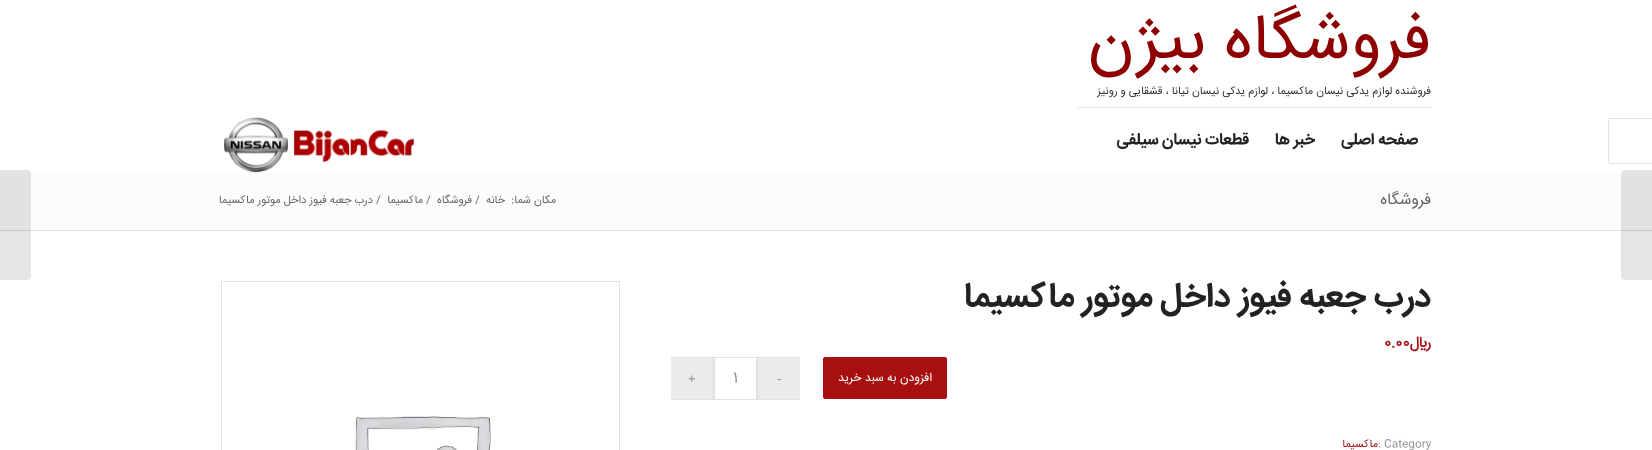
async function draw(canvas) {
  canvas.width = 1652;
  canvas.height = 450;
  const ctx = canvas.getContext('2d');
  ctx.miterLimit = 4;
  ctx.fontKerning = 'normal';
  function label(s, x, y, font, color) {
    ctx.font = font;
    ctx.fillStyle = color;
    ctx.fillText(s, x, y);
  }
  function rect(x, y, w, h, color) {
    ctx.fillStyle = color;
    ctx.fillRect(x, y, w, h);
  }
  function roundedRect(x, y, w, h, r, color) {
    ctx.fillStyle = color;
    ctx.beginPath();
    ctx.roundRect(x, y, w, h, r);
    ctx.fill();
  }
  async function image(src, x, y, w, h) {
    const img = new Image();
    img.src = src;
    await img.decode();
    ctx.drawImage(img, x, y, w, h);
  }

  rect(0, 0, 1652, 450, '#fff');
  rect(1078, 107, 353, 1, '#e1e1e1');
  ctx.direction = 'rtl';
  label('فروشگاه بیژن', 1431, 58, '65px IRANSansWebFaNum', '#8e0000');
  label('فروشنده لوازم یدکی نیسان ماکسیما ، لوازم یدکی نیسان تیانا ، قشقایی و رونیز', 1431, 94, '11px IRANSansWebFaNum', '#333');
  ctx.beginPath();
  ctx.roundRect(1608.5, 118.5, 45, 45, 1.5);
  ctx.strokeStyle = '#e1e1e1';
  ctx.stroke();
  rect(1609, 119, 1, 44, '#fff');
  label('صفحه اصلی', 1418, 144, 'bold 16px IRANSansWebFaNum', '#222');
  label('خبر ها', 1315, 144, 'bold 16px IRANSansWebFaNum', '#222');
  label('قطعات نیسان سیلفی', 1249, 144, 'bold 16px IRANSansWebFaNum', '#222');
  await image('assets/img1.png', 224, 117, 191, 56);
  rect(0, 173, 1652, 57, '#fcfcfc');
  rect(0, 230, 1652, 1, '#e1e1e1');
  ctx.fillStyle = '#0000001a';
  ctx.beginPath();
  ctx.roundRect(1621, 170, 31, 110, [4, 0, 0, 4]);
  ctx.fill();
  label('فروشگاه', 1431, 204, '16px IRANSansWebFaNum', '#666');
  label('مکان شما:', 556, 203, '11px IRANSansWebFaNum', '#666');
  label('خانه', 505, 203, '11px IRANSansWebFaNum', '#666');
  ctx.direction = 'ltr';
  label('/', 475, 203, '11px IRANSansWebFaNum', '#666');
  ctx.direction = 'rtl';
  label('فروشگاه', 472, 203, '11px IRANSansWebFaNum', '#666');
  ctx.direction = 'ltr';
  label('/', 426, 203, '11px IRANSansWebFaNum', '#666');
  ctx.direction = 'rtl';
  label('ماکسیما', 423, 203, '11px IRANSansWebFaNum', '#666');
  ctx.direction = 'ltr';
  label('/', 376, 203, '11px IRANSansWebFaNum', '#666');
  ctx.direction = 'rtl';
  label('درب جعبه فیوز داخل موتور ماکسیما', 373, 203, '11px IRANSansWebFaNum', '#666');
  label('درب جعبه فیوز داخل موتور ماکسیما', 1431, 306, 'bold 34px IRANSansWebFaNum', '#222');
  label('﷼', 1431, 347, 'bold 15px "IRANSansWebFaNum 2"', '#a81010');
  ctx.direction = 'ltr';
  label('0.00', 1384, 347, 'bold 15px "IRANSansWebFaNum 2"', '#a81010');
  roundedRect(823, 357, 124, 42, 2, '#a81010');
  ctx.direction = 'rtl';
  label('افزودن به سبد خرید', 932, 381, '12px IRANSansWebFaNum', '#fff');
  rect(758, 358, 42, 41, '#ebebeb');
  ctx.direction = 'ltr';
  label('-', 777, 383, '13px Liberation Sans', '#919191');
  rect(757, 357, 43, 1, '#e1e1e1');
  rect(757, 399, 43, 1, '#e1e1e1');
  rect(757, 357, 1, 43, '#e1e1e1');
  ctx.strokeRect(714.5, 357.5, 42, 42);
  label('1', 733, 382, '15px IRANSansWebFaNum', '#919191');
  rect(671, 358, 42, 41, '#ebebeb');
  label('+', 688, 383, '13px Liberation Sans', '#919191');
  rect(671, 357, 43, 1, '#e1e1e1');
  rect(713, 357, 1, 43, '#e1e1e1');
  rect(671, 399, 43, 1, '#e1e1e1');
  label(': Category', 1378, 447, '11px IRANSansWebFaNum', '#919191');
  ctx.direction = 'rtl';
  label('ماکسیما', 1378, 447, '11px IRANSansWebFaNum', '#a81010');
  ctx.strokeRect(221.5, 281.5, 398, 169);
  await image('assets/img2.png', 355, 416, 136, 34);
  ctx.fillStyle = '#0000001a';
  ctx.beginPath();
  ctx.roundRect(0, 170, 31, 110, [0, 4, 4, 0]);
  ctx.fill();
}

draw(document.querySelector('canvas'));
